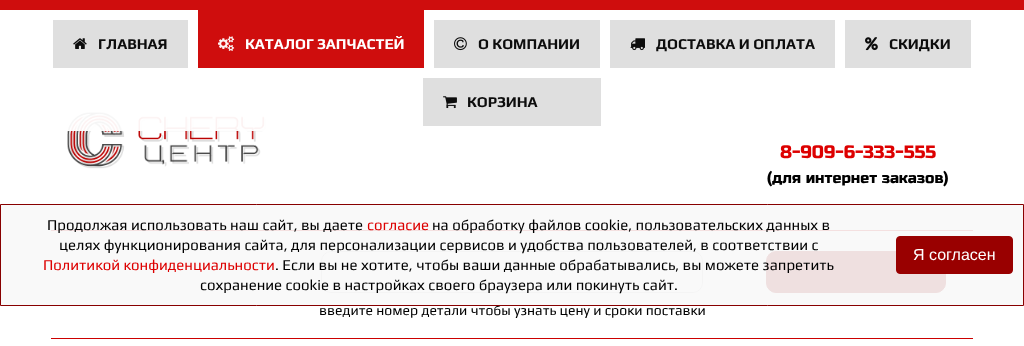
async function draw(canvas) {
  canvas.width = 1024;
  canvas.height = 346;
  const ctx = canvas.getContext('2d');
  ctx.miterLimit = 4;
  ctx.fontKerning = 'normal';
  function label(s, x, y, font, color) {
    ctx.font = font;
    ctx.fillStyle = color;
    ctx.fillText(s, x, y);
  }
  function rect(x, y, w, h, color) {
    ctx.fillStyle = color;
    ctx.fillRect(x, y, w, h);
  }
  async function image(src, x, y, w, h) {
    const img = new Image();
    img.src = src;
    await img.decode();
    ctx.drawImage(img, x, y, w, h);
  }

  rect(0, 0, 1024, 346, '#fff');
  await image('assets/img7.png', 67, 112, 200, 57);
  rect(67, 112, 200, 19, '#fffffff2');
  rect(0, 0, 1024, 10, '#cf0d0d');
  rect(53, 20, 135, 48, '#dfdfdf');
  await image('assets/img1.png', 73, 38, 14, 11);
  label('ГЛАВНАЯ', 98, 49, 'bold 15px Play', '#0d0d0d');
  rect(198, 10, 226, 58, '#cf0d0d');
  await image('assets/img2.png', 218, 36, 17, 15);
  label('КАТАЛОГ ЗАПЧАСТЕЙ', 245, 49, 'bold 15px Play', '#fff');
  rect(434, 20, 166, 48, '#dfdfdf');
  await image('assets/img3.png', 454, 37, 13, 14);
  label('О КОМПАНИИ', 478, 49, 'bold 15px Play', '#0d0d0d');
  rect(610, 20, 225, 48, '#dfdfdf');
  await image('assets/img4.png', 630, 38, 15, 13);
  label('ДОСТАВКА И ОПЛАТА', 656, 49, 'bold 15px Play', '#0d0d0d');
  rect(845, 20, 126, 48, '#dfdfdf');
  await image('assets/img5.png', 865, 37, 13, 14);
  label('СКИДКИ', 889, 49, 'bold 15px Play', '#0d0d0d');
  rect(423, 78, 178, 48, '#ddddddf2');
  await image('assets/img6.png', 443, 96, 14, 13);
  label('КОРЗИНА', 467, 107, 'bold 15px Play', '#0d0d0d');
  label('8-909-6-333-555', 780, 158, '18px Russo One', '#d00');
  label('(для интернет заказов)', 767, 183, '15px Russo One', '#000');
  rect(51, 230, 922, 1, '#c00');
  rect(51, 338, 922, 1, '#c00');
  ctx.fillStyle = '#900';
  ctx.beginPath();
  ctx.roundRect(766.5, 251.5, 179, 41, 9.5);
  ctx.fill();
  ctx.strokeStyle = '#900';
  ctx.stroke();
  ctx.beginPath();
  ctx.roundRect(321.5, 251.5, 381, 41, 9.5);
  ctx.strokeStyle = '#ccc';
  ctx.stroke();
  label('введите номер детали чтобы узнать цену и сроки поставки', 319, 315, '14px Play', '#000');
  ctx.fillStyle = '#f8f8f8e6';
  ctx.beginPath();
  ctx.rect(0.5, 204.5, 1023, 101);
  ctx.fill();
  ctx.strokeStyle = '#800';
  ctx.stroke();
  label('Продолжая использовать наш сайт, вы даете', 47, 230, '15px Play', '#000');
  label('согласие', 367, 230, '15px Play', '#d00');
  label('на обработку файлов cookie, пользовательских данных в', 432, 230, '15px Play', '#000');
  label('целях функционирования сайта, для персонализации сервисов и удобства пользователей, в соответствии с', 59, 250, '15px Play', '#000');
  label('Политикой конфиденциальности', 43, 270, '15px Play', '#d00');
  label('. Если вы не хотите, чтобы ваши данные обрабатывались, вы можете запретить', 275, 270, '15px Play', '#000');
  label('сохранение cookie в настройках своего браузера или покинуть сайт.', 200, 290, '15px Play', '#000');
  ctx.fillStyle = '#900';
  ctx.beginPath();
  ctx.roundRect(896.5, 236.5, 116, 37, 3.5);
  ctx.fill();
  ctx.strokeStyle = '#900';
  ctx.stroke();
  label('Я согласен', 913, 260, '16px Liberation Sans', '#fff');
}

draw(document.querySelector('canvas'));
